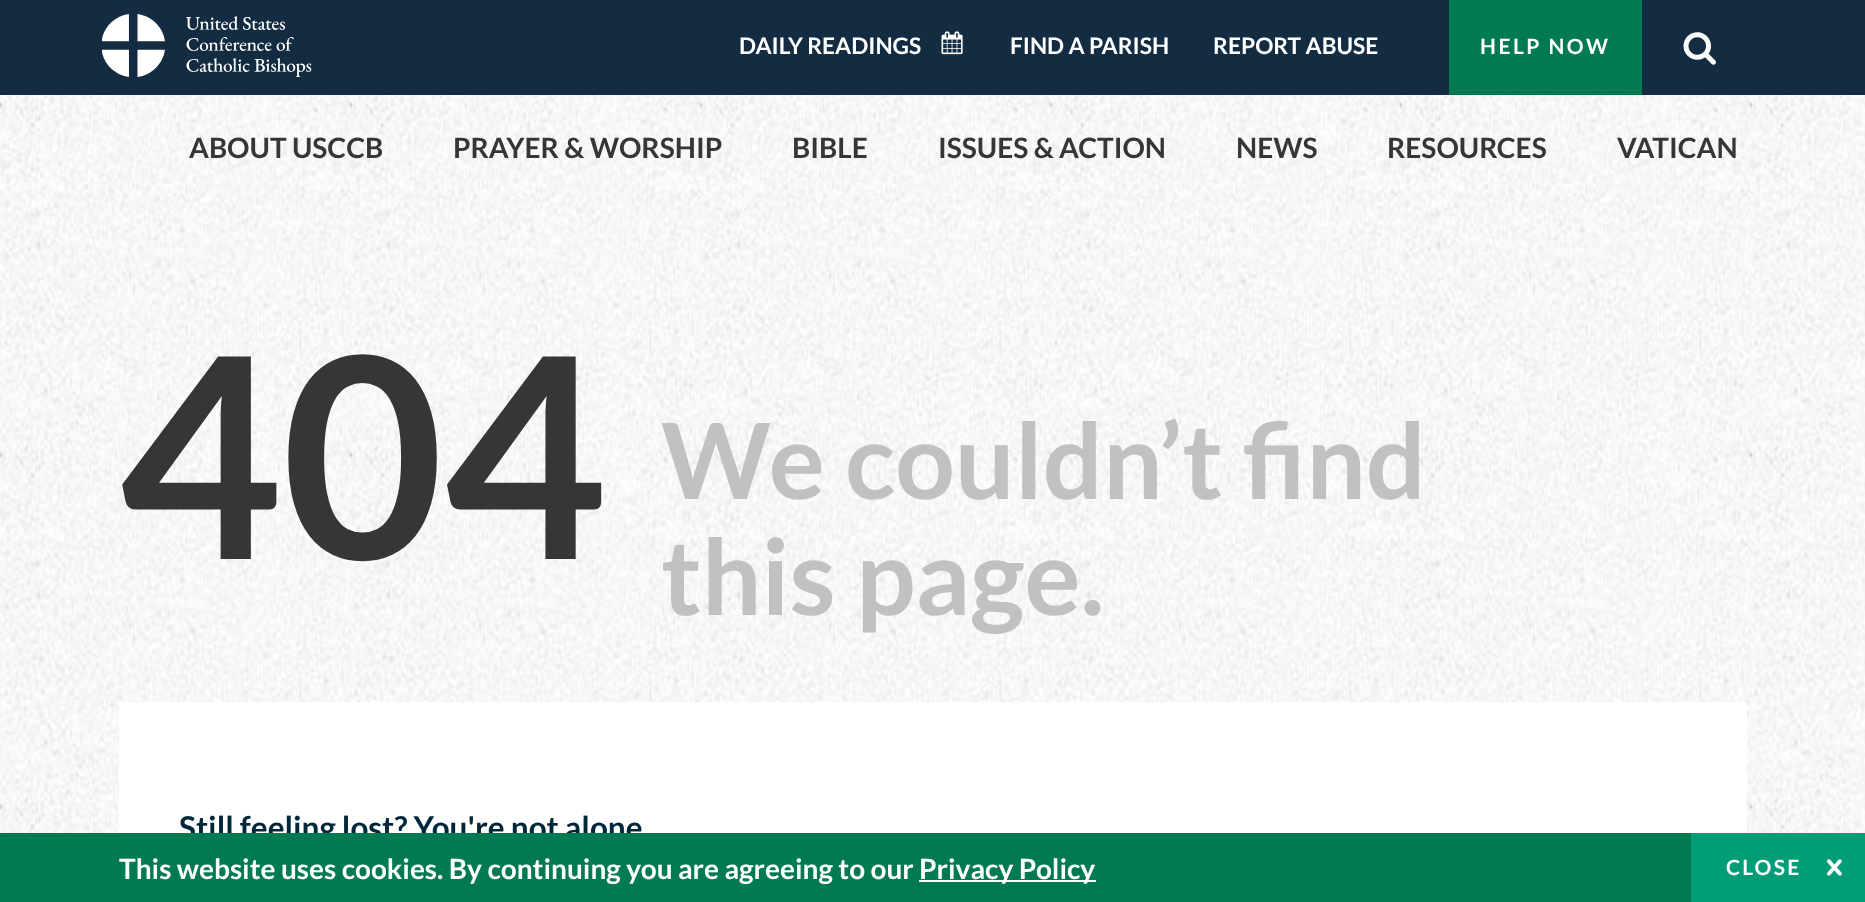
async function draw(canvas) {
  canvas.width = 1865;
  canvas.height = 902;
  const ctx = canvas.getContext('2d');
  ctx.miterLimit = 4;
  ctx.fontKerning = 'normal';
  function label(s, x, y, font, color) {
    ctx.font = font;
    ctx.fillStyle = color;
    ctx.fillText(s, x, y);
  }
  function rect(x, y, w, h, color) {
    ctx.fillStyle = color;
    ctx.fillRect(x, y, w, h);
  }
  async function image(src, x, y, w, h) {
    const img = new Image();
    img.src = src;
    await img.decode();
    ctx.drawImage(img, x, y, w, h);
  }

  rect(0, 0, 1865, 902, '#fff');
  await image('assets/img1.png', 0, 0, 1865, 702);
  rect(0, 0, 1865, 95, '#062137f2');
  await image('assets/img2.png', 102, 14, 210, 63);
  label('DAILY READINGS', 739, 54, 'bold 22.75px Lato', '#fff');
  await image('assets/img3.png', 941, 31, 22, 24);
  label('FIND A PARISH', 1010, 54, 'bold 22.75px Lato', '#fff');
  label('REPORT ABUSE', 1213, 54, 'bold 22.75px Lato', '#fff');
  rect(1449, 0, 193, 95, '#007a53');
  ctx.letterSpacing = '2.5px';
  label('HELP NOW', 1480, 54, 'bold 21px Lato', '#fff');
  await image('assets/img4.png', 1683, 32, 33, 33);
  ctx.letterSpacing = '0px';
  label('ABOUT USCCB', 189, 158, 'bold 28px Lato', '#363636');
  label('PRAYER & WORSHIP', 453, 158, 'bold 28px Lato', '#363636');
  label('BIBLE', 792, 158, 'bold 28px Lato', '#363636');
  label('ISSUES & ACTION', 938, 158, 'bold 28px Lato', '#363636');
  label('NEWS', 1236, 158, 'bold 28px Lato', '#363636');
  label('RESOURCES', 1387, 158, 'bold 28px Lato', '#363636');
  label('VATICAN', 1617, 158, 'bold 28px Lato', '#363636');
  label('404', 119, 559, 'bold 280px Lato', '#363636');
  label('We couldn’t find', 661, 499, 'bold 105px Lato', '#c1c1c1');
  label('this page.', 661, 615, 'bold 105px Lato', '#c1c1c1');
  await image('assets/img5.png', 0, 702, 1865, 131);
  rect(119, 702, 1628, 131, '#fff');
  label('Still feeling lost? You\'re not alone', 179, 839, 'bold 31.5px Lato', '#00263a');
  rect(0, 833, 1691, 69, '#007a53');
  label('This website uses cookies. By continuing you are agreeing to our', 119, 879, 'bold 28px Lato', '#fff');
  rect(919, 880, 177, 2, '#fff');
  label('Privacy Policy', 919, 879, 'bold 28px Lato', '#fff');
  rect(1691, 833, 174, 69, '#009d77');
  ctx.letterSpacing = '2.25px';
  label('CLOSE', 1726, 875, 'bold 21px Lato', '#fff');
  await image('assets/img6.png', 1827, 859, 15, 17);
}

draw(document.querySelector('canvas'));
